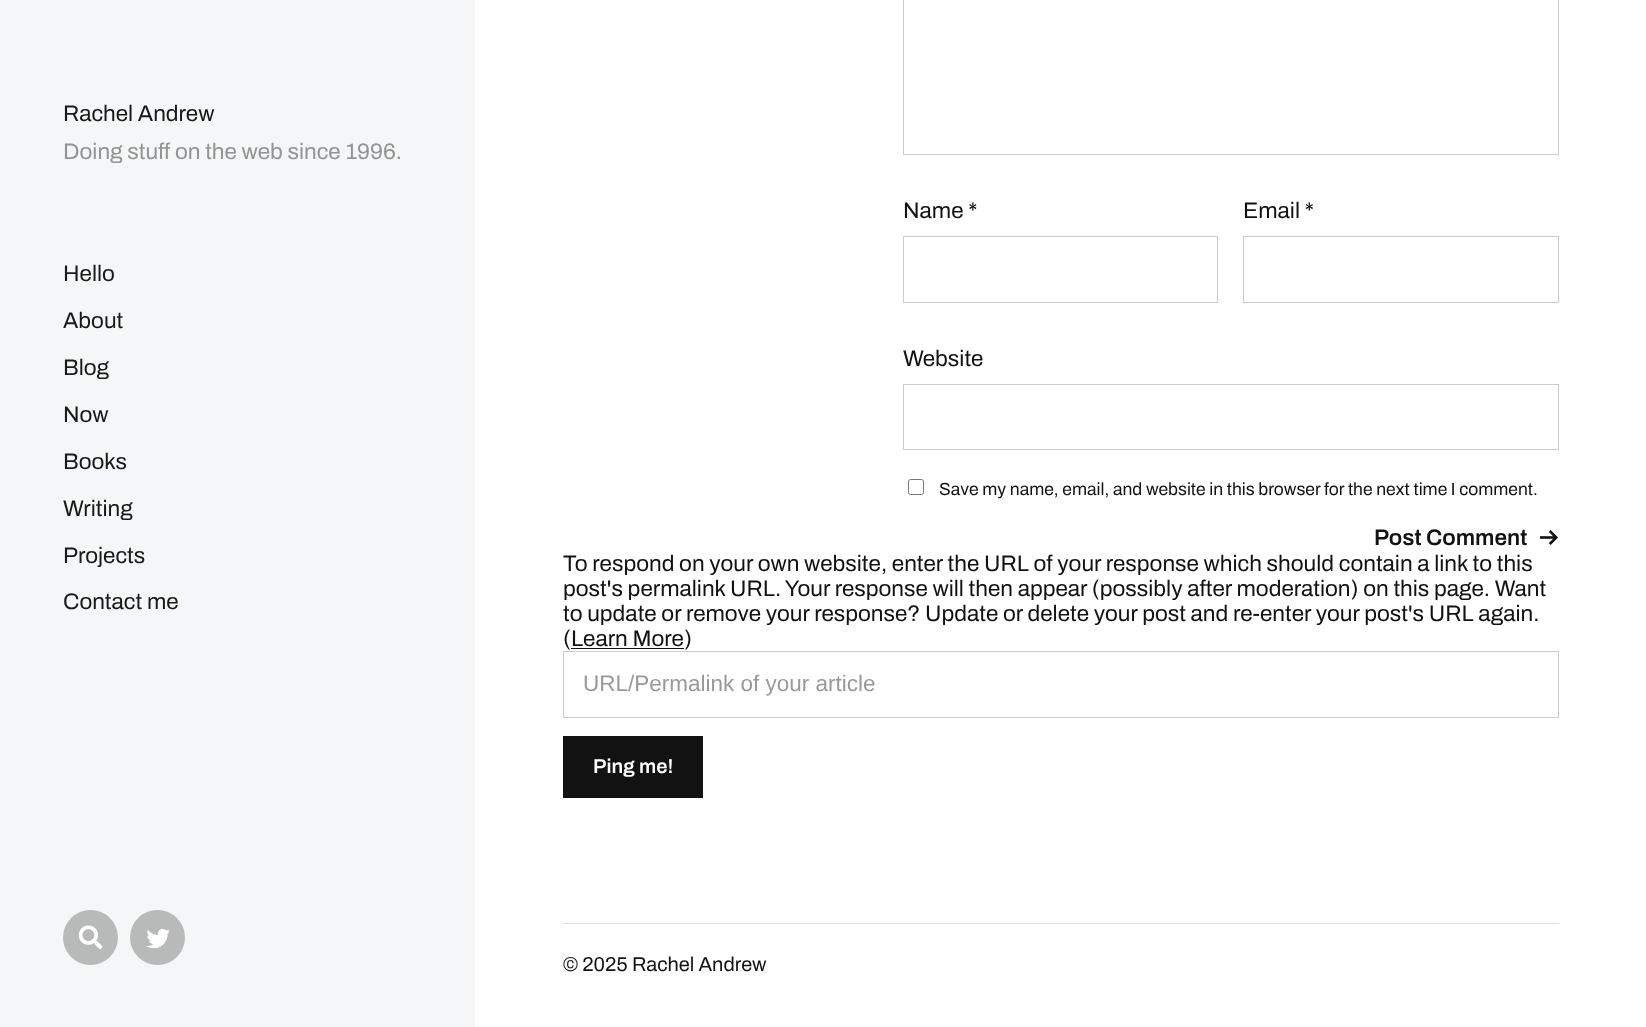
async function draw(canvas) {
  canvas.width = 1646;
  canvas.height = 1027;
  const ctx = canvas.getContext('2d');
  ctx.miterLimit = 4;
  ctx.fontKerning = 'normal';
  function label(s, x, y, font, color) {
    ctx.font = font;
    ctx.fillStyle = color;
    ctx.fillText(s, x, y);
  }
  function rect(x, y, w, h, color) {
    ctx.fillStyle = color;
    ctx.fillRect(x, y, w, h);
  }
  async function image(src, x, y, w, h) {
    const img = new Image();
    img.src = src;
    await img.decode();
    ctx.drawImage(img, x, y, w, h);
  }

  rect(0, 0, 1646, 1027, '#fff');
  rect(0, 0, 475, 1027, '#f5f6f7');
  label('Rachel Andrew', 63, 121, '600 22.5px Archivo', '#191919');
  label('Doing stuff on the web since 1996.', 63, 159, '600 22.5px Archivo', '#939494');
  label('Hello', 63, 281, '600 22.5px Archivo', '#191919');
  label('About', 63, 328, '600 22.5px Archivo', '#191919');
  label('Blog', 63, 375, '600 22.5px Archivo', '#191919');
  label('Now', 63, 422, '600 22.5px Archivo', '#191919');
  label('Books', 63, 469, '600 22.5px Archivo', '#191919');
  label('Writing', 63, 516, '600 22.5px Archivo', '#191919');
  label('Projects', 63, 563, '600 22.5px Archivo', '#191919');
  label('Contact me', 63, 609, '600 22.5px Archivo', '#191919');
  ctx.fillStyle = '#b8b9b9';
  ctx.beginPath();
  ctx.arc(90.5, 937.5, 27.5, 0, 2 * Math.PI);
  ctx.fill();
  await image('assets/img1.png', 78, 925, 25, 25);
  ctx.beginPath();
  ctx.arc(157.5, 937.5, 27.5, 0, 2 * Math.PI);
  ctx.fill();
  await image('assets/img2.png', 146, 929, 24, 20);
  ctx.strokeStyle = '#ccc';
  ctx.strokeRect(903.5, -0.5, 655, 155);
  label('Name *', 903, 218, '600 22.5px Archivo', '#121212');
  ctx.strokeRect(903.5, 236.5, 314, 66);
  label('Email *', 1243, 218, '600 22.5px Archivo', '#121212');
  ctx.strokeRect(1243.5, 236.5, 315, 66);
  label('Website', 903, 366, '600 22.5px Archivo', '#121212');
  ctx.strokeRect(903.5, 384.5, 655, 65);
  ctx.beginPath();
  ctx.roundRect(908.5, 479.5, 15, 15, 2);
  ctx.strokeStyle = '#767676';
  ctx.stroke();
  label('Save my name, email, and website in this browser for the next time I comment.', 939, 495, '600 17.5px Archivo', '#121212');
  await image('assets/img3.png', 1540, 530, 18, 15);
  label('Post Comment', 1374, 545, '600 22.5px "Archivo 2"', '#121212');
  label('To respond on your own website, enter the URL of your response which should contain a link to this', 563, 571, '600 22.5px Archivo', '#121212');
  label('post\'s permalink URL. Your response will then appear (possibly after moderation) on this page. Want', 563, 596, '600 22.5px Archivo', '#121212');
  label('to update or remove your response? Update or delete your post and re-enter your post\'s URL again.', 563, 621, '600 22.5px Archivo', '#121212');
  label('(Learn More)', 563, 646, '600 22.5px Archivo', '#121212');
  rect(571, 648, 113, 1, '#121212');
  ctx.strokeStyle = '#ccc';
  ctx.strokeRect(563.5, 651.5, 995, 66);
  label('URL/Permalink of your article', 583, 691, '22.5px Liberation Sans', '#99999b');
  rect(563, 736, 140, 62, '#121212');
  label('Ping me!', 593, 773, '600 20px "Archivo 2"', '#fff');
  rect(563, 923, 996, 1, '#dfdfe0');
  label('© 2025 Rachel Andrew', 563, 971, '600 20px Archivo', '#121212');
}

draw(document.querySelector('canvas'));
